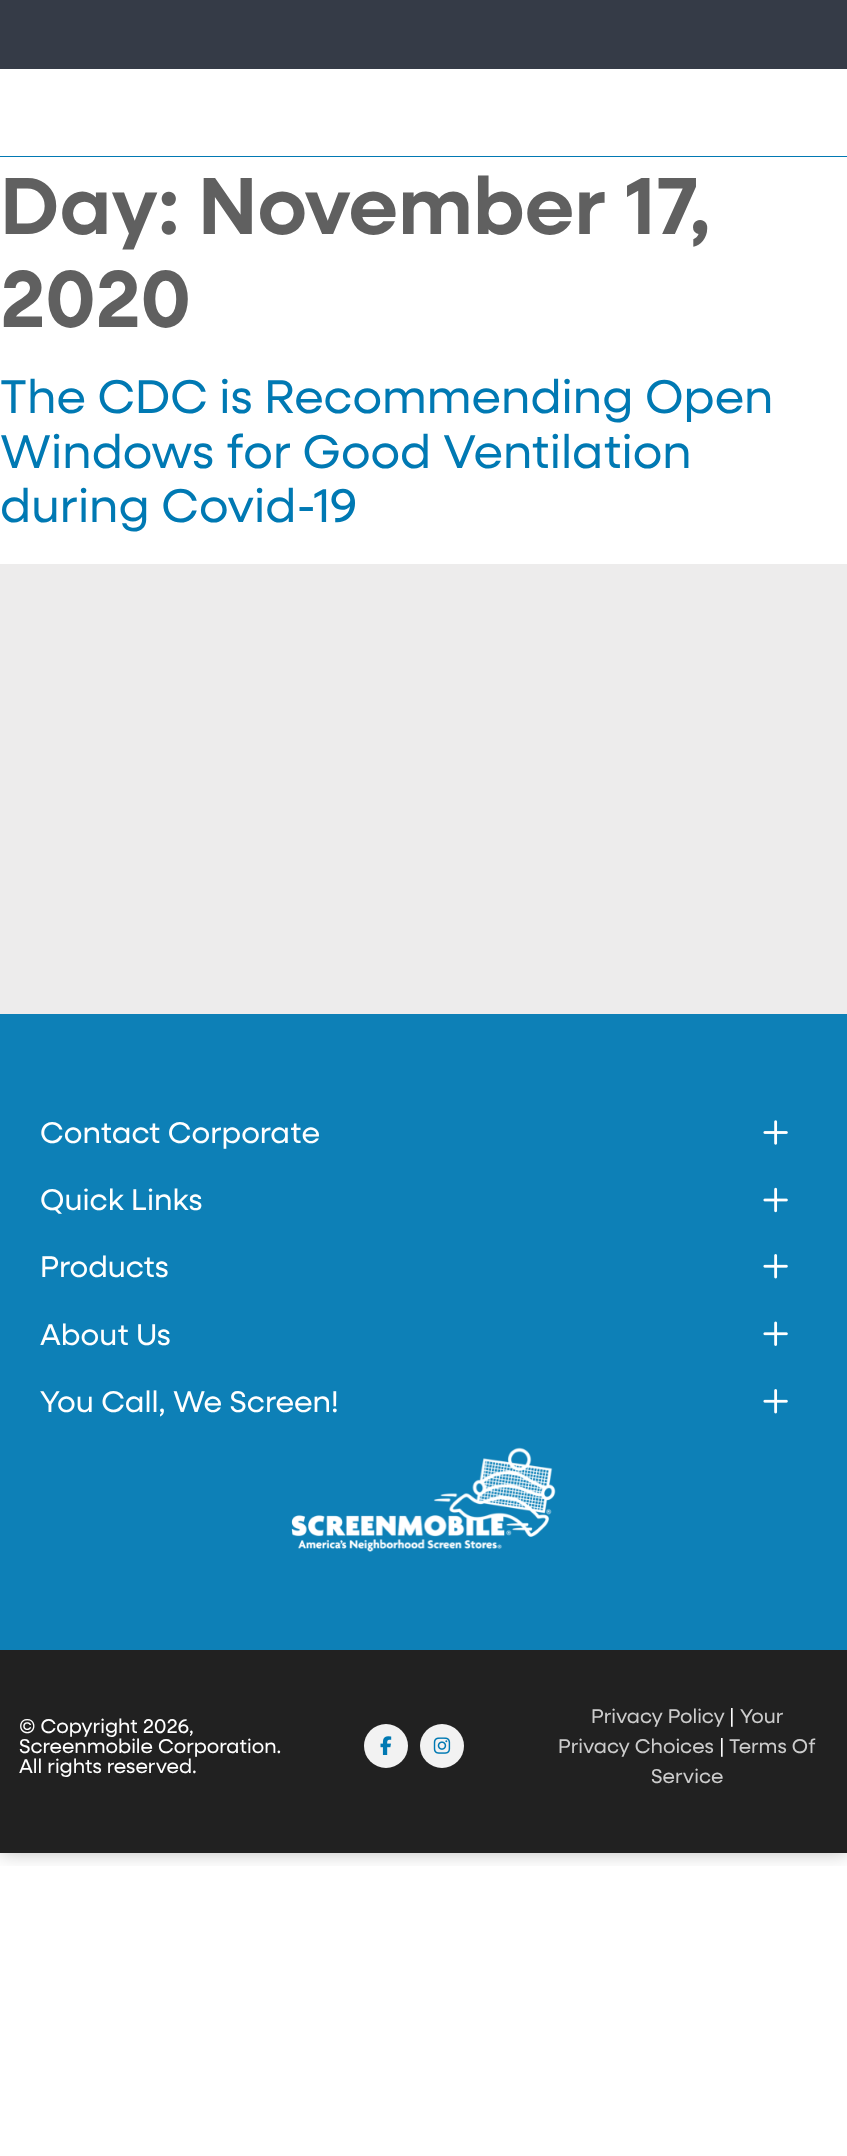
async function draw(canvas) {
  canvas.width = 847;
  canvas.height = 2156;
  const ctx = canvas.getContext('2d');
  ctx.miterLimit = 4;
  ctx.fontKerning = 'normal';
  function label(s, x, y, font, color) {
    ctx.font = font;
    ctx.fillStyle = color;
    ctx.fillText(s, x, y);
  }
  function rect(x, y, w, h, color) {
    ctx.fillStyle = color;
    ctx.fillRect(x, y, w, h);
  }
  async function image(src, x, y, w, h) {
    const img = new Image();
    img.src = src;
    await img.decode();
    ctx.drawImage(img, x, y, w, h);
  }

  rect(0, 0, 847, 2156, '#fff');
  ctx.save();
  ctx.beginPath();
  ctx.rect(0, 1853, 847, 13);
  ctx.clip();
  ctx.fillStyle = '#00000040';
  ctx.filter = 'blur(9.5px)';
  ctx.beginPath();
  ctx.rect(0, 156, 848, 1697);
  ctx.fill();
  ctx.filter = 'none';
  ctx.restore();
  rect(0, 139, 847, 18, '#fff');
  rect(0, 156, 847, 1, '#0279b3');
  rect(0, 0, 847, 69, '#353b47');
  label('Day: November 17,', 0, 234, '600 81.25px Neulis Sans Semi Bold', '#606060');
  label('2020', 0, 327, '600 81.25px Neulis Sans Semi Bold', '#606060');
  label('The CDC is Recommending Open', 0, 413, '47.5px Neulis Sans', '#0079b3');
  label('Windows for Good Ventilation', 0, 468, '47.5px Neulis Sans', '#0079b3');
  label('during Covid-19', 0, 522, '47.5px Neulis Sans', '#0079b3');
  rect(0, 564, 847, 450, '#edecec');
  rect(0, 1014, 847, 636, '#0d80b7');
  label('Contact Corporate', 40, 1143, '30px Neulis Sans', '#fff');
  await image('assets/img1.png', 763, 1120, 25, 25);
  label('Quick Links', 40, 1210, '30px Neulis Sans', '#fff');
  await image('assets/img2.png', 763, 1187, 25, 26);
  label('Products', 40, 1277, '30px Neulis Sans', '#fff');
  await image('assets/img3.png', 763, 1254, 25, 25);
  label('About Us', 40, 1345, '30px Neulis Sans', '#fff');
  await image('assets/img4.png', 763, 1321, 25, 25);
  label('You Call, We Screen!', 40, 1412, '30px Neulis Sans', '#fff');
  await image('assets/img3.png', 763, 1389, 25, 25);
  await image('assets/img5.png', 291, 1447, 265, 105);
  rect(0, 1650, 847, 203, '#212121');
  label('© Copyright 2026,', 19, 1733, '20px Neulis Sans', '#fff');
  label('Screenmobile Corporation.', 19, 1753, '20px Neulis Sans', '#fff');
  label('All rights reserved.', 19, 1773, '20px Neulis Sans', '#fff');
  ctx.fillStyle = '#f2f2f2';
  ctx.beginPath();
  ctx.arc(386, 1746, 22, 0, 2 * Math.PI);
  ctx.fill();
  await image('assets/img6.png', 380, 1736, 12, 19);
  ctx.beginPath();
  ctx.arc(442, 1746, 22, 0, 2 * Math.PI);
  ctx.fill();
  await image('assets/img7.png', 433, 1737, 18, 17);
  label('Privacy Policy', 591, 1723, '20px Neulis Sans', '#ccc');
  label('|', 729, 1723, '20px Neulis Sans', '#fff');
  label('Your', 740, 1723, '20px Neulis Sans', '#ccc');
  label('Privacy Choices', 558, 1753, '20px Neulis Sans', '#ccc');
  label('|', 719, 1753, '20px Neulis Sans', '#fff');
  label('Terms Of', 729, 1753, '20px Neulis Sans', '#ccc');
  label('Service', 651, 1783, '20px Neulis Sans', '#ccc');
}

draw(document.querySelector('canvas'));
